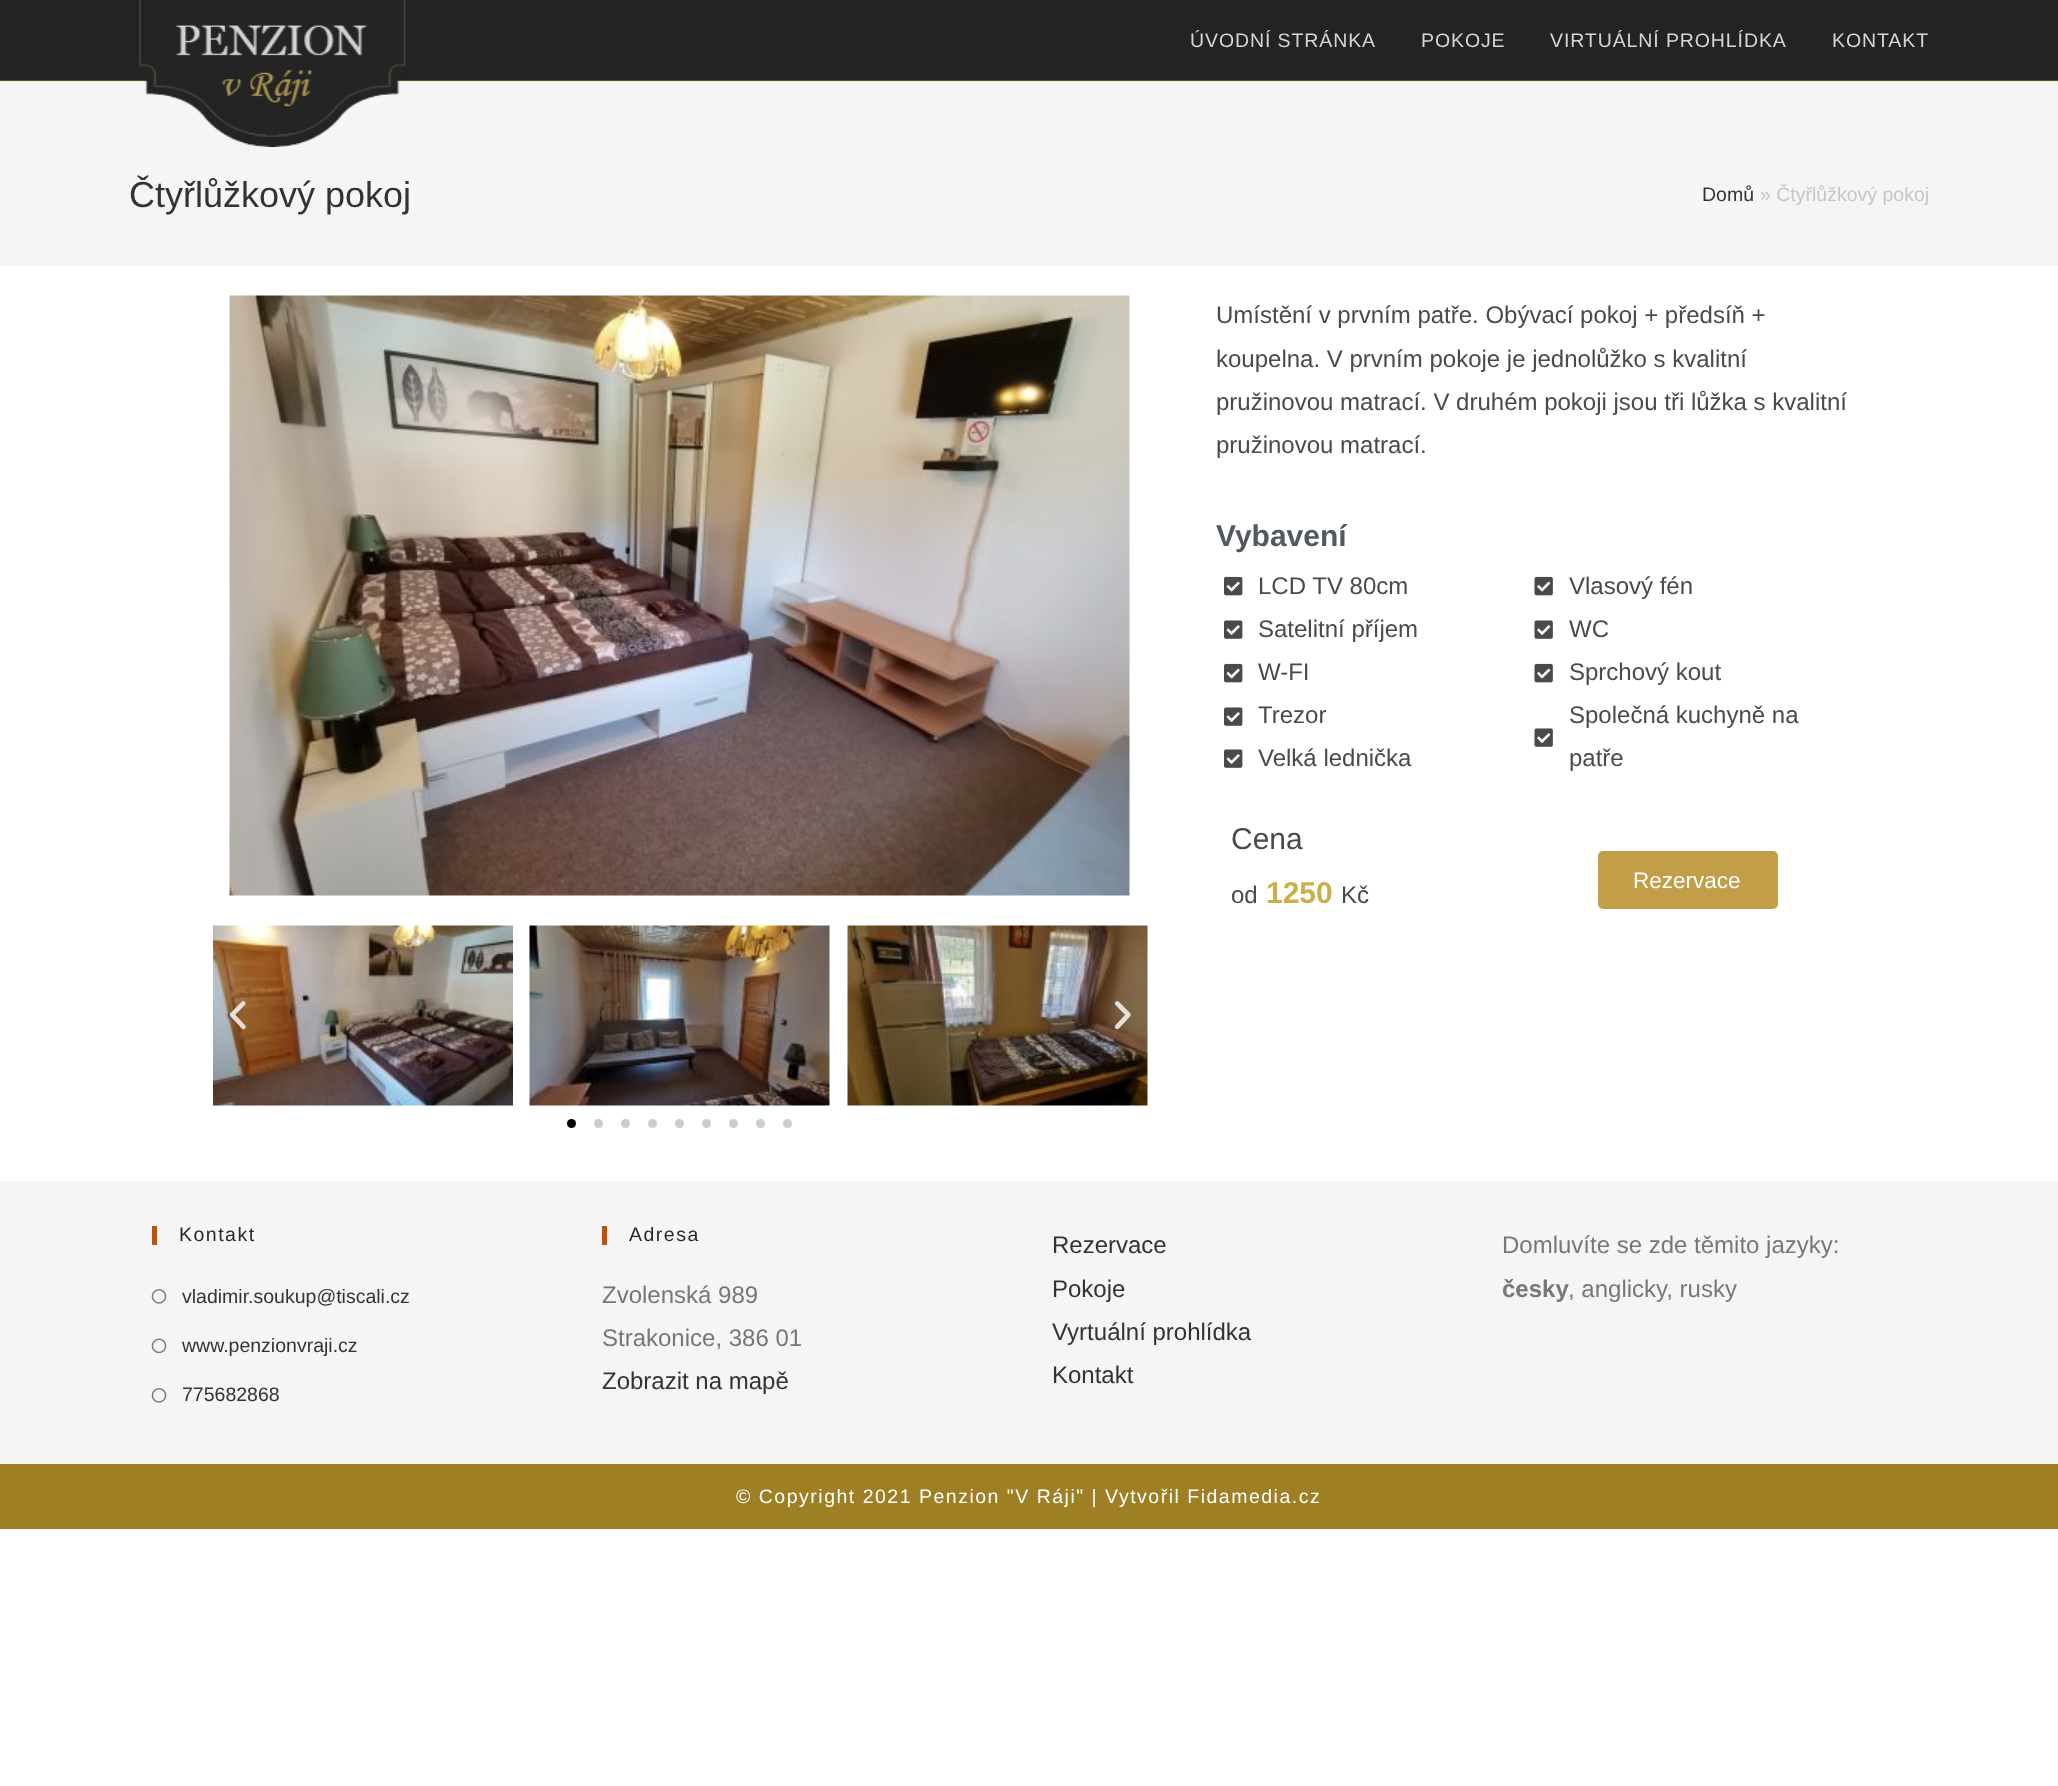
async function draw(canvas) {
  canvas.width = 2058;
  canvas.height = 1786;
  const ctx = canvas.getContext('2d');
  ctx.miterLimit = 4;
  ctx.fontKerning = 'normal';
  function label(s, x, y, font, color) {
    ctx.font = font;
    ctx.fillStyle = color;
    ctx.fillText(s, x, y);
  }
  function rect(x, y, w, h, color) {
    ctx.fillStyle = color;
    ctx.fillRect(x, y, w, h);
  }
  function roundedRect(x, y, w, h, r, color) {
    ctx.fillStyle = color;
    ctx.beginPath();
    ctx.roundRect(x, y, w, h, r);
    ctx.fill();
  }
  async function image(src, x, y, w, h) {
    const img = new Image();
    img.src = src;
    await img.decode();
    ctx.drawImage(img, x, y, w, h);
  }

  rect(0, 0, 2058, 1786, '#fff');
  rect(0, 0, 2058, 80, '#232323');
  rect(0, 80, 2058, 1, '#504a34');
  rect(0, 82, 2058, 184, '#f5f5f5');
  rect(0, 81, 2058, 1, '#f0e9d3');
  await image('assets/img1.png', 139, 0, 267, 147);
  ctx.letterSpacing = '0.9px';
  label('ÚVODNÍ STRÁNKA', 1190, 47, '19.5px Liberation Sans', '#d6d6d6');
  label('POKOJE', 1421, 47, '19.5px Liberation Sans', '#d6d6d6');
  label('VIRTUÁLNÍ PROHLÍDKA', 1550, 47, '19.5px Liberation Sans', '#d6d6d6');
  label('KONTAKT', 1832, 47, '19.5px Liberation Sans', '#d6d6d6');
  ctx.letterSpacing = '0px';
  label('Čtyřlůžkový pokoj', 129, 207, '36px Liberation Sans', '#333');
  label('Domů', 1702, 201, '19.5px Liberation Sans', '#333');
  label('» Čtyřlůžkový pokoj', 1760, 201, '19.5px Liberation Sans', '#c6c6c6');
  await image('assets/img2.png', 229, 295, 901, 601);
  await image('assets/img3.png', 213, 925, 300, 181);
  await image('assets/img4.png', 529, 925, 301, 181);
  await image('assets/img5.png', 847, 925, 301, 181);
  await image('assets/img6.png', 230, 1001, 16, 29);
  await image('assets/img7.png', 1114, 1001, 17, 29);
  ctx.fillStyle = '#000';
  ctx.beginPath();
  ctx.arc(571.5, 1123.5, 4.5, 0, 2 * Math.PI);
  ctx.fill();
  ctx.fillStyle = '#ccc';
  ctx.beginPath();
  ctx.arc(598.5, 1123.5, 4.5, 0, 2 * Math.PI);
  ctx.fill();
  ctx.beginPath();
  ctx.arc(625.5, 1123.5, 4.5, 0, 2 * Math.PI);
  ctx.fill();
  ctx.beginPath();
  ctx.arc(652.5, 1123.5, 4.5, 0, 2 * Math.PI);
  ctx.fill();
  ctx.beginPath();
  ctx.arc(679.5, 1123.5, 4.5, 0, 2 * Math.PI);
  ctx.fill();
  ctx.beginPath();
  ctx.arc(706.5, 1123.5, 4.5, 0, 2 * Math.PI);
  ctx.fill();
  ctx.beginPath();
  ctx.arc(733.5, 1123.5, 4.5, 0, 2 * Math.PI);
  ctx.fill();
  ctx.beginPath();
  ctx.arc(760.5, 1123.5, 4.5, 0, 2 * Math.PI);
  ctx.fill();
  ctx.beginPath();
  ctx.arc(787.5, 1123.5, 4.5, 0, 2 * Math.PI);
  ctx.fill();
  label('Umístění v prvním patře. Obývací pokoj + předsíň +', 1216, 323, '24px Liberation Sans', '#4a4a4a');
  label('koupelna. V prvním pokoje je jednolůžko s kvalitní', 1216, 367, '24px Liberation Sans', '#4a4a4a');
  label('pružinovou matrací. V druhém pokoji jsou tři lůžka s kvalitní', 1216, 410, '24px Liberation Sans', '#4a4a4a');
  label('pružinovou matrací.', 1216, 453, '24px Liberation Sans', '#4a4a4a');
  label('Vybavení', 1216, 546, 'bold 30px Liberation Sans', '#54595f');
  await image('assets/img8.png', 1224, 576, 19, 20);
  label('LCD TV 80cm', 1258, 594, '24px Liberation Sans', '#4a4a4a');
  await image('assets/img9.png', 1224, 620, 19, 19);
  label('Satelitní příjem', 1258, 637, '24px Liberation Sans', '#4a4a4a');
  await image('assets/img8.png', 1224, 663, 19, 20);
  label('W-FI', 1258, 680, '24px Liberation Sans', '#4a4a4a');
  await image('assets/img9.png', 1224, 707, 19, 19);
  label('Trezor', 1258, 723, '24px Liberation Sans', '#4a4a4a');
  await image('assets/img9.png', 1224, 749, 19, 19);
  label('Velká lednička', 1258, 766, '24px Liberation Sans', '#4a4a4a');
  await image('assets/img10.png', 1534, 576, 19, 20);
  label('Vlasový fén', 1569, 594, '24px Liberation Sans', '#4a4a4a');
  await image('assets/img11.png', 1534, 620, 19, 19);
  label('WC', 1569, 637, '24px Liberation Sans', '#4a4a4a');
  await image('assets/img10.png', 1534, 663, 19, 20);
  label('Sprchový kout', 1569, 680, '24px Liberation Sans', '#4a4a4a');
  await image('assets/img11.png', 1534, 728, 19, 19);
  label('Společná kuchyně na', 1569, 723, '24px Liberation Sans', '#4a4a4a');
  label('patře', 1569, 766, '24px Liberation Sans', '#4a4a4a');
  label('Cena', 1231, 849, '30px Liberation Sans', '#4a4a4a');
  label('od', 1231, 903, '24px Liberation Sans', '#4a4a4a');
  label('1250', 1266, 903, 'bold 30px Liberation Sans', '#c9b04b');
  label('Kč', 1341, 903, '24px Liberation Sans', '#4a4a4a');
  roundedRect(1598, 851, 180, 58, 5, '#c29e49');
  label('Rezervace', 1633, 888, '22.5px Liberation Sans', '#fff');
  rect(0, 1181, 2058, 283, '#f5f5f5');
  rect(152, 1226, 5, 19, '#c45100');
  ctx.letterSpacing = '1.5px';
  label('Kontakt', 179, 1241, '19.5px Liberation Sans', '#292929');
  await image('assets/img12.png', 151, 1289, 16, 15);
  ctx.letterSpacing = '0px';
  label('vladimir.soukup@tiscali.cz', 182, 1303, '19.5px Liberation Sans', '#333');
  await image('assets/img13.png', 151, 1338, 16, 16);
  label('www.penzionvraji.cz', 182, 1352, '19.5px Liberation Sans', '#333');
  await image('assets/img12.png', 151, 1388, 16, 15);
  label('775682868', 182, 1401, '19.5px Liberation Sans', '#333');
  rect(602, 1226, 5, 19, '#c45100');
  ctx.letterSpacing = '1.5px';
  label('Adresa', 629, 1241, '19.5px Liberation Sans', '#292929');
  ctx.letterSpacing = '0px';
  label('Zvolenská 989', 602, 1303, '24px Liberation Sans', '#777');
  label('Strakonice, 386 01', 602, 1346, '24px Liberation Sans', '#777');
  label('Zobrazit na mapě', 602, 1389, '24px Liberation Sans', '#333');
  label('Rezervace', 1052, 1253, '24px Liberation Sans', '#333');
  label('Pokoje', 1052, 1297, '24px Liberation Sans', '#333');
  label('Vyrtuální prohlídka', 1052, 1340, '24px Liberation Sans', '#333');
  label('Kontakt', 1052, 1383, '24px Liberation Sans', '#333');
  label('Domluvíte se zde těmito jazyky:', 1502, 1253, '24px Liberation Sans', '#777');
  label('česky', 1502, 1297, 'bold 24px Liberation Sans', '#777');
  label(', anglicky, rusky', 1568, 1297, '24px Liberation Sans', '#777');
  rect(0, 1464, 2058, 65, '#9e7f24');
  ctx.letterSpacing = '1.5px';
  label('© Copyright 2021 Penzion "V Ráji" | Vytvořil Fidamedia.cz', 736, 1503, '19.5px Liberation Sans', '#fff');
}

draw(document.querySelector('canvas'));
